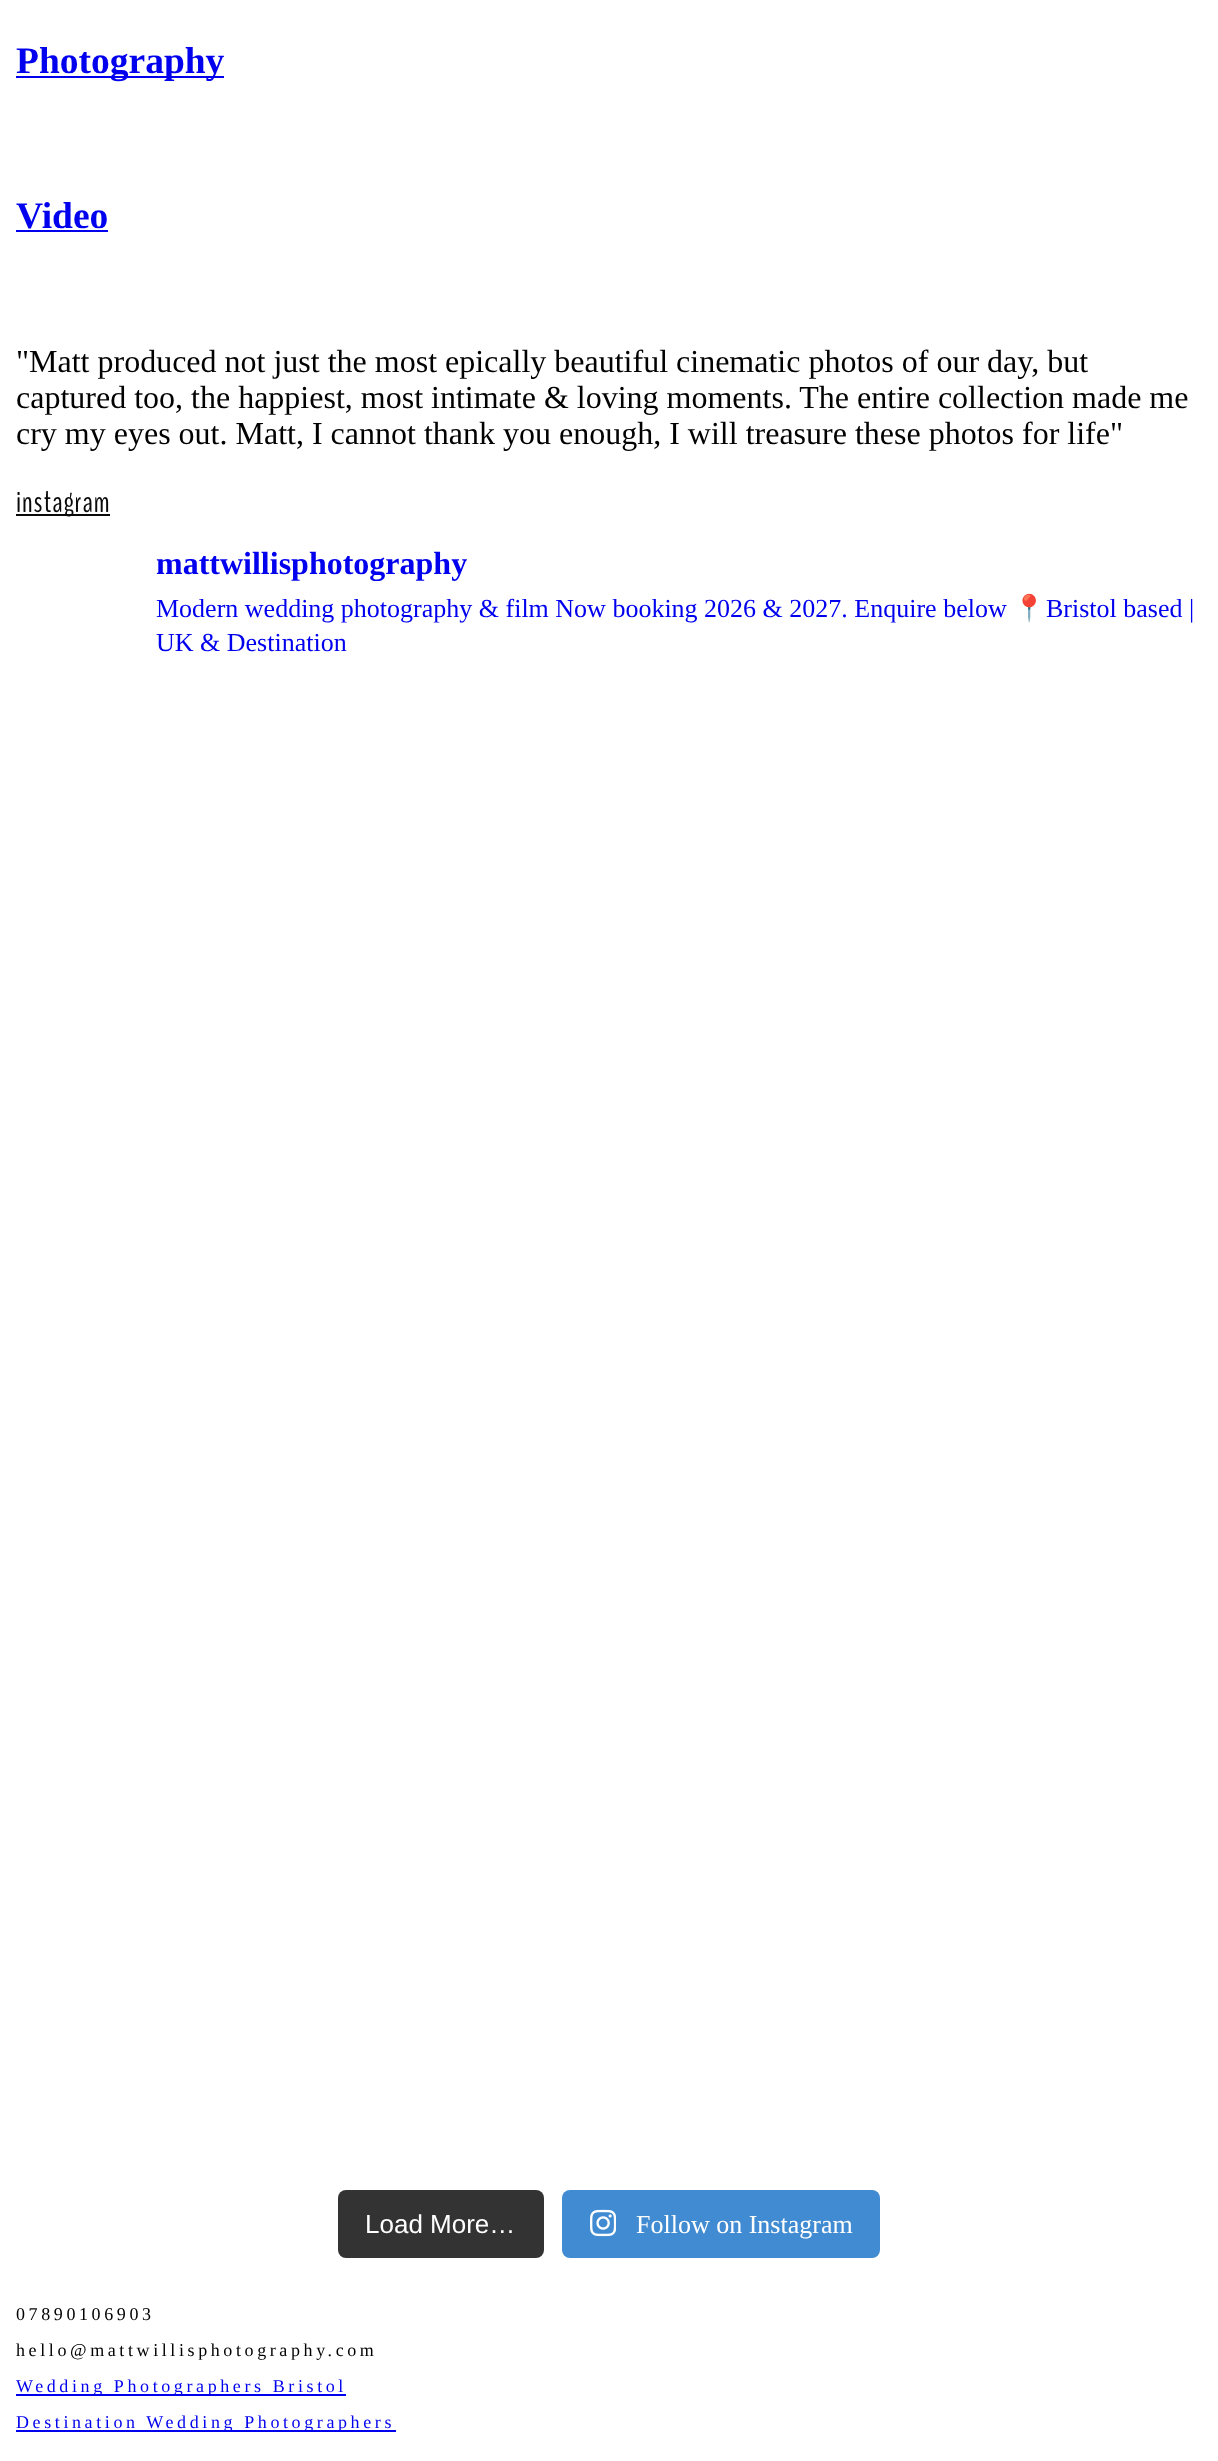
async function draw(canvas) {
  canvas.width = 1218;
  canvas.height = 2461;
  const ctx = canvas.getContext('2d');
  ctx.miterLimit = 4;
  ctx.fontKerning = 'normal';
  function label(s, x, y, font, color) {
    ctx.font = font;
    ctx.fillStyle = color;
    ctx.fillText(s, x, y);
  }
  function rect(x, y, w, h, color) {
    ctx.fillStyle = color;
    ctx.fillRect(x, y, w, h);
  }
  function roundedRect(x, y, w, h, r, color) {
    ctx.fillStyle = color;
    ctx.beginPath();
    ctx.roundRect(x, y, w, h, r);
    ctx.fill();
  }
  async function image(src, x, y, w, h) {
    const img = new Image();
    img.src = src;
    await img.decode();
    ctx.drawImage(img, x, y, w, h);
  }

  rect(0, 0, 1218, 2461, '#fff');
  rect(16, 76, 208, 2, '#00e');
  label('Photography', 16, 73, 'bold 37.5px Liberation Serif', '#00e');
  label('Video', 16, 228, 'bold 37.5px Liberation Serif', '#00e');
  rect(16, 230, 92, 2, '#00e');
  label('"Matt produced not just the most epically beautiful cinematic photos of our day, but', 16, 372, '32px Liberation Serif', '#000');
  label('captured too, the happiest, most intimate & loving moments. The entire collection made me', 16, 408, '32px Liberation Serif', '#000');
  label('cry my eyes out. Matt, I cannot thank you enough, I will treasure these photos for life"', 16, 444, '32px Liberation Serif', '#000');
  rect(16, 514, 94, 2, '#0a0a0a');
  ctx.letterSpacing = '1px';
  label('instagram', 16, 512, '30px BenchNine', '#0a0a0a');
  ctx.letterSpacing = '0px';
  label('mattwillisphotography', 156, 574, 'bold 32px Liberation Serif', '#00e');
  label('Modern wedding photography & film Now booking 2026 & 2027. Enquire below', 156, 617, '26px Liberation Serif', '#00e');
  label('📍', 1013, 617, '26px Noto Color Emoji', '#00e');
  label('Bristol based |', 1046, 617, '26px Liberation Serif', '#00e');
  label('UK & Destination', 156, 651, '26px Liberation Serif', '#00e');
  roundedRect(338, 2190, 206, 68, 8, '#333');
  label('Load More…', 365, 2233, '26px Liberation Sans', '#fff');
  roundedRect(562, 2190, 318, 68, 8, '#408bd1');
  await image('assets/img1.png', 590, 2209, 26, 28);
  label('Follow on Instagram', 636, 2233, '26px Liberation Serif', '#fff');
  ctx.letterSpacing = '3.6px';
  label('07890106903', 16, 2320, '18px Liberation Serif', '#000');
  label('hello@mattwillisphotography.com', 16, 2356, '18px Liberation Serif', '#000');
  rect(16, 2394, 330, 2, '#00e');
  label('Wedding Photographers Bristol', 16, 2392, '18px Liberation Serif', '#00e');
  rect(16, 2430, 380, 2, '#00e');
  label('Destination Wedding Photographers', 16, 2428, '18px Liberation Serif', '#00e');
}

draw(document.querySelector('canvas'));
